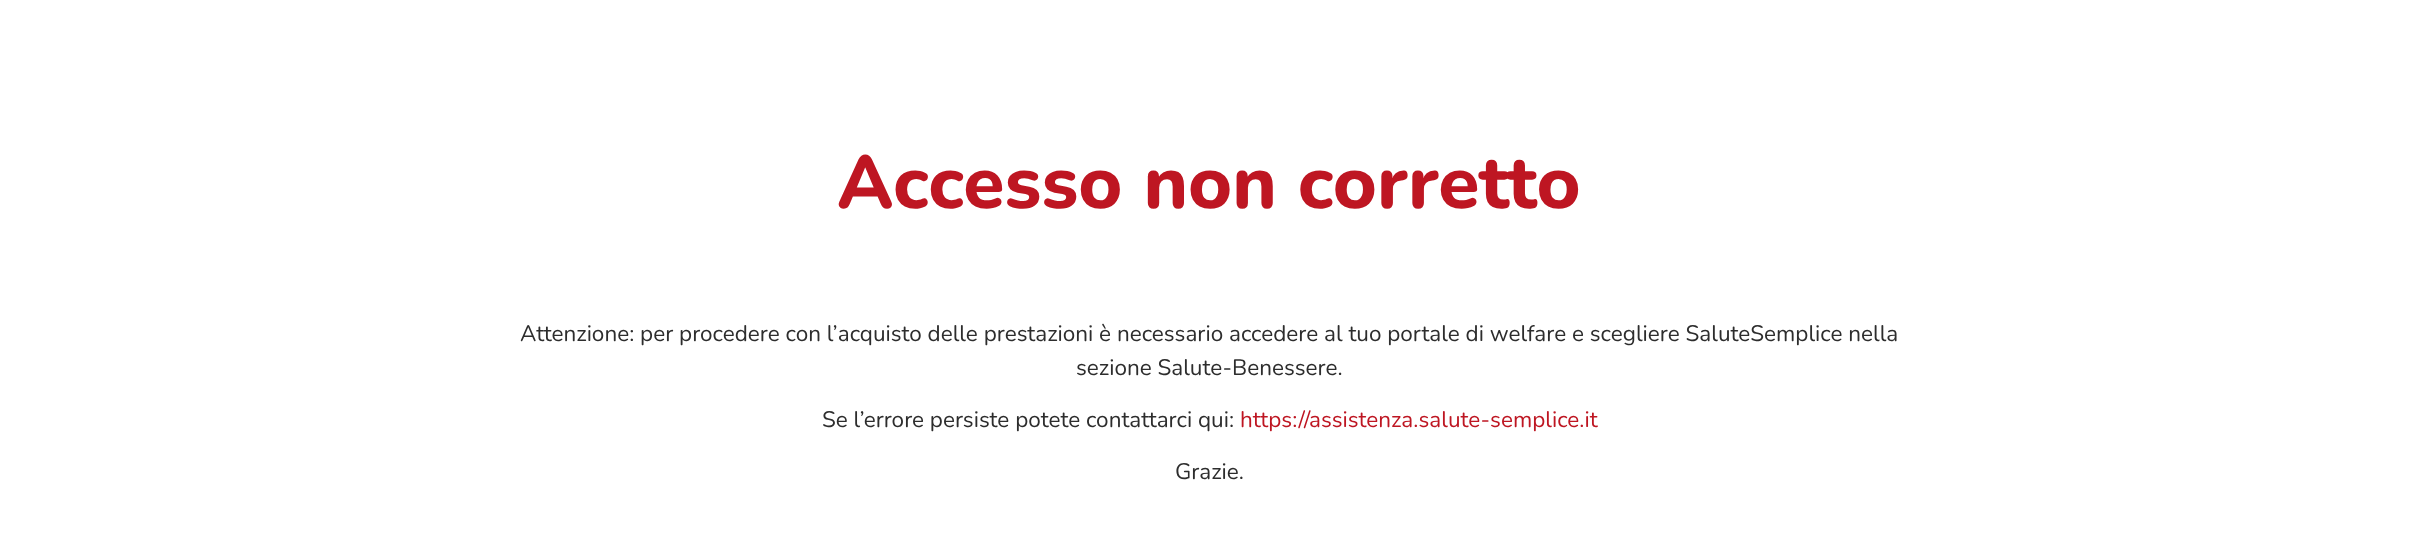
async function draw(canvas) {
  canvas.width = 2418;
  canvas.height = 536;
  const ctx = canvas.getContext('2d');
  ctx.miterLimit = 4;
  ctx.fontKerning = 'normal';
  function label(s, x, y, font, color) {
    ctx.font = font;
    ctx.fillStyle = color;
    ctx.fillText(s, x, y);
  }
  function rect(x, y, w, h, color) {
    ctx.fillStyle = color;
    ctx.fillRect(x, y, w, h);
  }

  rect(0, 0, 2418, 536, '#fff');
  label('Accesso non corretto', 837, 208, '800 75px Nunito', '#be1622');
  label('Attenzione: per procedere con l’acquisto delle prestazioni è necessario accedere al tuo portale di welfare e scegliere SaluteSemplice nella', 520, 341, '22.5px Nunito', '#2d2d2d');
  label('sezione Salute-Benessere.', 1076, 375, '22.5px Nunito', '#2d2d2d');
  label('Se l’errore persiste potete contattarci qui:', 822, 427, '22.5px Nunito', '#2d2d2d');
  label('https://assistenza.salute-semplice.it', 1240, 427, '22.5px Nunito', '#be1622');
  label('Grazie.', 1175, 479, '22.5px Nunito', '#2d2d2d');
}

draw(document.querySelector('canvas'));
